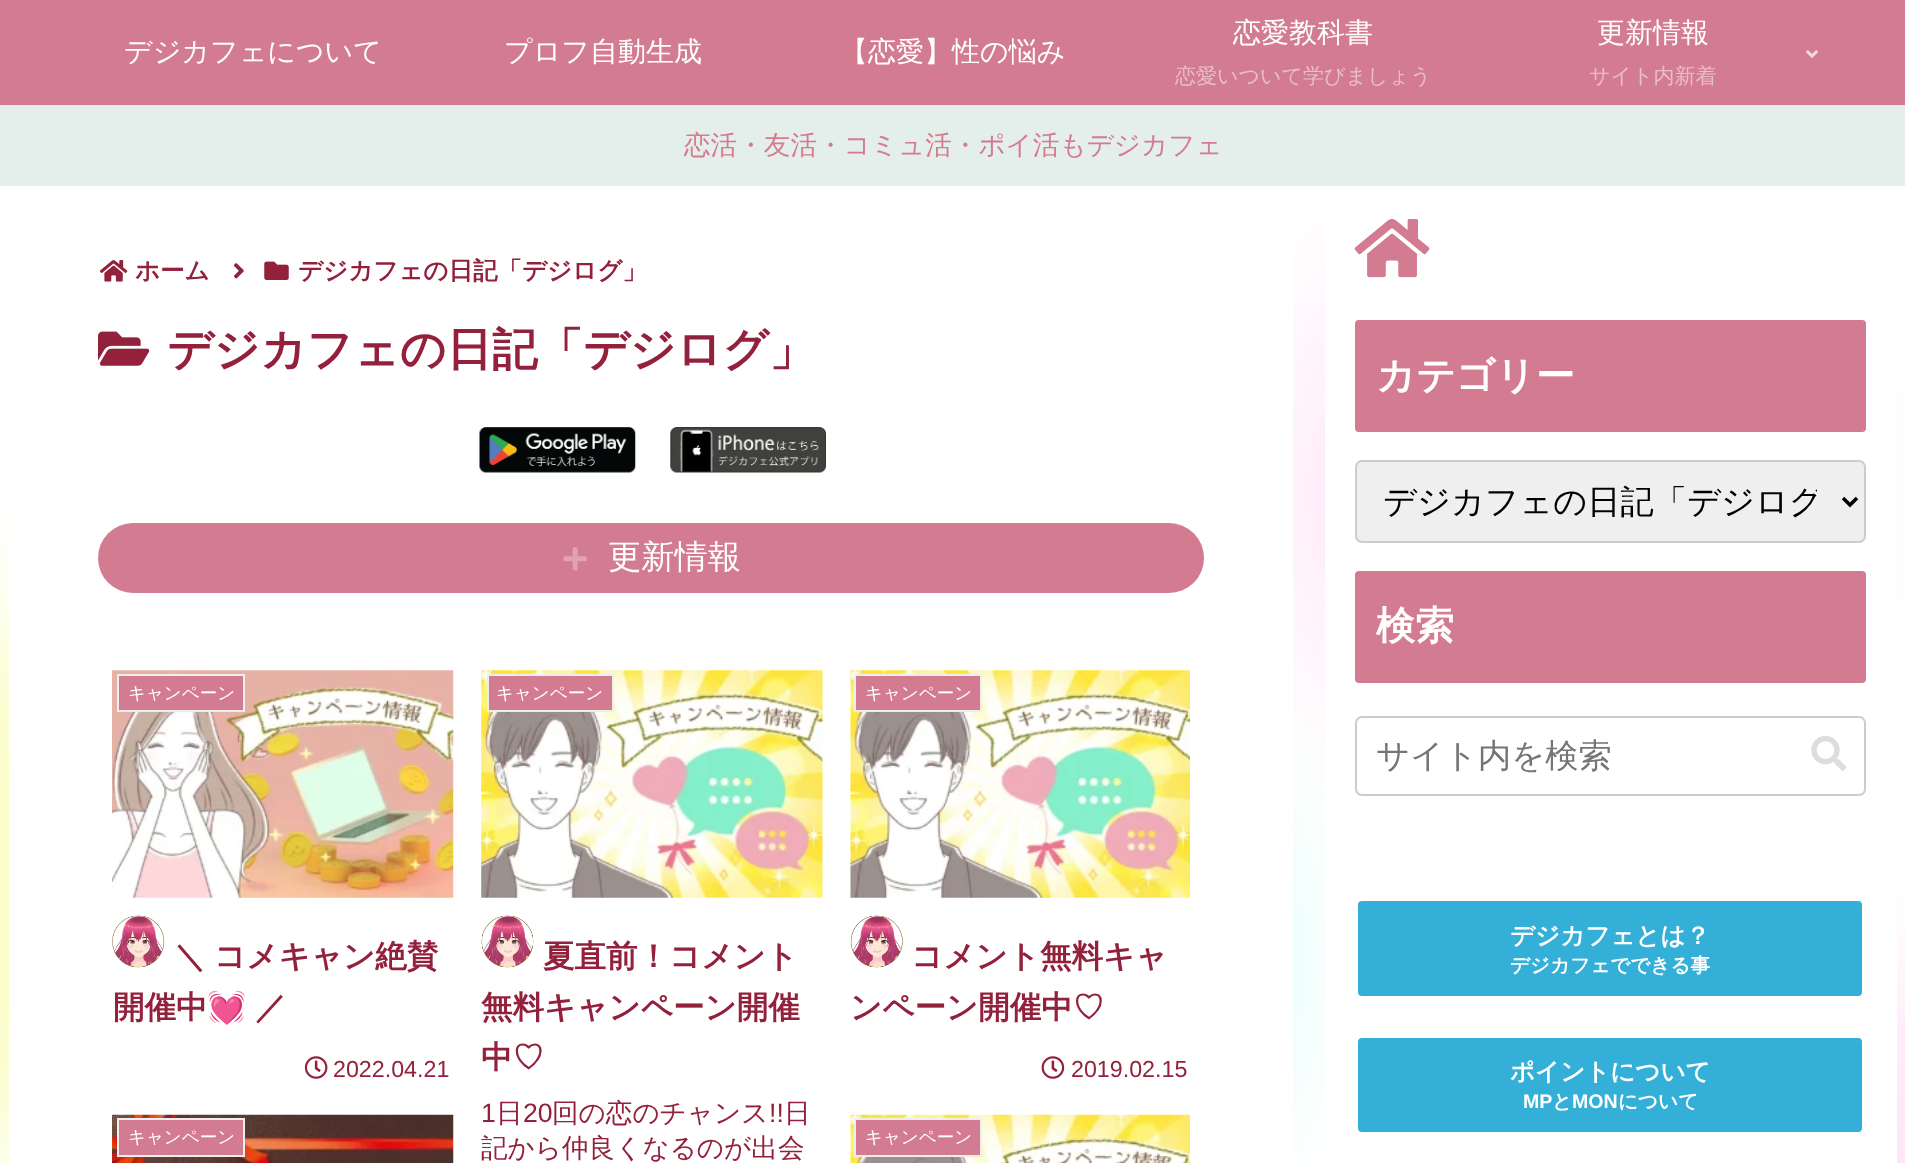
async function draw(canvas) {
  canvas.width = 1905;
  canvas.height = 1163;
  const ctx = canvas.getContext('2d');
  ctx.miterLimit = 4;
  ctx.fontKerning = 'normal';
  function label(s, x, y, font, color) {
    ctx.font = font;
    ctx.fillStyle = color;
    ctx.fillText(s, x, y);
  }
  function rect(x, y, w, h, color) {
    ctx.fillStyle = color;
    ctx.fillRect(x, y, w, h);
  }
  function roundedRect(x, y, w, h, r, color) {
    ctx.fillStyle = color;
    ctx.beginPath();
    ctx.roundRect(x, y, w, h, r);
    ctx.fill();
  }
  async function image(src, x, y, w, h) {
    const img = new Image();
    img.src = src;
    await img.decode();
    ctx.drawImage(img, x, y, w, h);
  }
  let path;

  rect(0, 0, 1905, 1163, '#fff');
  ctx.fillStyle = '#fafdc9';
  ctx.filter = 'blur(73px)';
  ctx.beginPath();
  ctx.roundRect(-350, 616, 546, 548, 273);
  ctx.fill();
  ctx.filter = 'none';
  ctx.fillStyle = '#adfff1';
  ctx.filter = 'blur(72.5px)';
  ctx.beginPath();
  ctx.roundRect(698, 686, 546, 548, 273);
  ctx.fill();
  ctx.filter = 'none';
  ctx.fillStyle = '#ffe5f7';
  ctx.filter = 'blur(69.5px)';
  ctx.beginPath();
  ctx.roundRect(1285, 221, 546, 547, 273);
  ctx.fill();
  ctx.filter = 'none';
  ctx.filter = 'blur(70.5px)';
  ctx.beginPath();
  ctx.roundRect(1741, 966, 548, 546, 273);
  ctx.fill();
  ctx.filter = 'none';
  rect(0, 0, 1905, 105, '#d37c91');
  label('デジカフェについて', 124, 61, '500 28px WenQuanYi Zen Hei', '#fff');
  label('プロフ自動生成', 504, 61, '500 28px WenQuanYi Zen Hei', '#fff');
  label('【恋愛】性の悩み', 840, 61, '500 28px WenQuanYi Zen Hei', '#fff');
  label('恋愛教科書', 1233, 42, '500 28px WenQuanYi Zen Hei', '#fff');
  label('恋愛いついて学びましょう', 1175, 83, '500 21px WenQuanYi Zen Hei', '#e9bec8');
  label('更新情報', 1597, 42, '500 28px WenQuanYi Zen Hei', '#fff');
  label('サイト内新着', 1589, 83, '500 21px WenQuanYi Zen Hei', '#e9bec8');
  await image('assets/img1.png', 1806, 50, 12, 8);
  rect(0, 105, 1905, 81, '#e4efec');
  label('恋活・友活・コミュ活・ポイ活もデジカフェ', 684, 154, '500 26.6px WenQuanYi Zen Hei', '#d37c91');
  roundedRect(9, 186, 1284, 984, 7, '#fff');
  await image('assets/img2.png', 99, 260, 29, 22);
  label('ホーム', 135, 279, 'bold 24.5px WenQuanYi Zen Hei', '#93213c');
  await image('assets/img3.png', 234, 263, 10, 16);
  await image('assets/img4.png', 264, 261, 25, 19);
  label('デジカフェの日記「デジログ」', 298, 279, 'bold 24.5px WenQuanYi Zen Hei', '#93213c');
  await image('assets/img5.png', 98, 331, 52, 35);
  label('デジカフェの日記「デジログ」', 167, 365, 'bold 45.5px WenQuanYi Zen Hei', '#93213c');
  await image('assets/img6.png', 479, 427, 157, 46);
  await image('assets/img7.png', 670, 427, 156, 46);
  roundedRect(98, 523, 1106, 70, 35, '#d37c91');
  await image('assets/img8.png', 563, 547, 24, 24);
  label('更新情報', 608, 568, '500 33.25px WenQuanYi Zen Hei', '#fff');
  await image('assets/img9.png', 112, 670, 342, 228);
  ctx.fillStyle = '#d37c91';
  ctx.beginPath();
  ctx.rect(118, 675, 126, 36);
  ctx.fill();
  ctx.strokeStyle = '#eee';
  ctx.lineWidth = 2;
  ctx.stroke();
  label('キャンペーン', 128, 699, '500 17.5px WenQuanYi Zen Hei', '#fff');
  await image('assets/img10.png', 112, 915, 53, 53);
  ctx.wordSpacing = '-1px';
  label('＼ コメキャン絶賛', 174, 967, 'bold 31.5px WenQuanYi Zen Hei', '#93213c');
  ctx.wordSpacing = '0px';
  label('開催中', 113, 1018, 'bold 31.5px WenQuanYi Zen Hei', '#93213c');
  label('💓', 207, 1018, 'bold 31.5px Noto Color Emoji', '#93213c');
  label('／', 255, 1018, 'bold 31.5px WenQuanYi Zen Hei', '#93213c');
  await image('assets/img11.png', 304, 1056, 24, 23);
  label('2022.04.21', 333, 1077, '23.25px Liberation Sans', '#93213c');
  await image('assets/img12.png', 481, 670, 342, 228);
  ctx.fillStyle = '#d37c91';
  ctx.beginPath();
  ctx.rect(488, 675, 125, 36);
  ctx.fill();
  ctx.stroke();
  label('キャンペーン', 496, 699, '500 17.5px WenQuanYi Zen Hei', '#fff');
  await image('assets/img13.png', 481, 915, 53, 53);
  label('夏直前！コメント', 543, 967, 'bold 31.5px WenQuanYi Zen Hei', '#93213c');
  label('無料キャンペーン開催', 481, 1018, 'bold 31.5px WenQuanYi Zen Hei', '#93213c');
  label('中♡', 481, 1068, 'bold 31.5px WenQuanYi Zen Hei', '#93213c');
  label('1', 481, 1122, '26.6px Liberation Sans', '#93213c');
  label('日', 496, 1122, '500 26.6px WenQuanYi Zen Hei', '#93213c');
  label('20', 523, 1122, '26.6px Liberation Sans', '#93213c');
  label('回の恋のチャンス', 552, 1122, '500 26.6px WenQuanYi Zen Hei', '#93213c');
  label('!!', 769, 1122, '26.6px Liberation Sans', '#93213c');
  label('日', 784, 1122, '500 26.6px WenQuanYi Zen Hei', '#93213c');
  label('記から仲良くなるのが出会', 481, 1157, '500 26.6px WenQuanYi Zen Hei', '#93213c');
  await image('assets/img14.png', 850, 670, 340, 228);
  ctx.fillStyle = '#d37c91';
  ctx.beginPath();
  ctx.rect(855, 675, 126, 36);
  ctx.fill();
  ctx.stroke();
  label('キャンペーン', 865, 699, '500 17.5px WenQuanYi Zen Hei', '#fff');
  await image('assets/img15.png', 850, 915, 53, 53);
  label('コメント無料キャ', 911, 967, 'bold 31.5px WenQuanYi Zen Hei', '#93213c');
  label('ンペーン開催中♡', 850, 1018, 'bold 31.5px WenQuanYi Zen Hei', '#93213c');
  await image('assets/img16.png', 1041, 1056, 24, 23);
  label('2019.02.15', 1071, 1077, '23.25px Liberation Sans', '#93213c');
  await image('assets/img17.png', 112, 1114, 342, 49);
  ctx.fillStyle = '#d37c91';
  ctx.beginPath();
  ctx.rect(118, 1119, 126, 37);
  ctx.fill();
  ctx.stroke();
  label('キャンペーン', 128, 1143, '500 17.5px WenQuanYi Zen Hei', '#fff');
  await image('assets/img18.png', 850, 1114, 340, 49);
  ctx.fillStyle = '#d37c91';
  ctx.beginPath();
  ctx.rect(855, 1119, 126, 37);
  ctx.fill();
  ctx.stroke();
  label('キャンペーン', 865, 1143, '500 17.5px WenQuanYi Zen Hei', '#fff');
  roundedRect(1325, 186, 572, 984, 7, '#fff');
  await image('assets/img19.png', 1354, 219, 76, 59);
  roundedRect(1355, 320, 511, 112, 4, '#d37c91');
  label('カテゴリー', 1376, 389, 'bold 39px WenQuanYi Zen Hei', '#fff');
  ctx.fillStyle = '#efefef';
  ctx.beginPath();
  ctx.roundRect(1356, 461, 509, 81, 6);
  ctx.fill();
  ctx.strokeStyle = '#ccc';
  ctx.stroke();
  path = new Path2D('M1843 498L1850 505L1857 498');
  ctx.strokeStyle = '#000';
  ctx.lineWidth = 3.5;
  ctx.stroke(path);
  ctx.save();
  ctx.beginPath();
  ctx.rect(1383, 481, 434, 41);
  ctx.clip();
  label('デジカフェの日記「デジログ', 1383, 513, '500 33.25px WenQuanYi Zen Hei', '#000');
  ctx.restore();
  roundedRect(1355, 571, 511, 112, 4, '#d37c91');
  label('検索', 1376, 639, 'bold 39px WenQuanYi Zen Hei', '#fff');
  ctx.beginPath();
  ctx.roundRect(1356, 717, 509, 78, 6);
  ctx.strokeStyle = '#ccc';
  ctx.lineWidth = 2;
  ctx.stroke();
  label('サイト内を検索', 1376, 767, '500 33.25px WenQuanYi Zen Hei', '#757575');
  await image('assets/img20.png', 1811, 736, 36, 35);
  roundedRect(1358, 901, 504, 95, 4, '#34afd7');
  label('デジカフェとは？', 1510, 944, 'bold 24.5px WenQuanYi Zen Hei', '#fff');
  label('デジカフェでできる事', 1510, 972, 'bold 19.6px WenQuanYi Zen Hei', '#fff');
  roundedRect(1358, 1038, 504, 94, 4, '#34afd7');
  label('ポイントについて', 1510, 1080, 'bold 24.5px WenQuanYi Zen Hei', '#fff');
  label('MP', 1523, 1108, 'bold 19.6px Liberation Sans', '#fff');
  label('と', 1552, 1108, 'bold 19.6px WenQuanYi Zen Hei', '#fff');
  label('MON', 1572, 1108, 'bold 19.6px Liberation Sans', '#fff');
  label('について', 1618, 1108, 'bold 19.6px WenQuanYi Zen Hei', '#fff');
}

draw(document.querySelector('canvas'));
